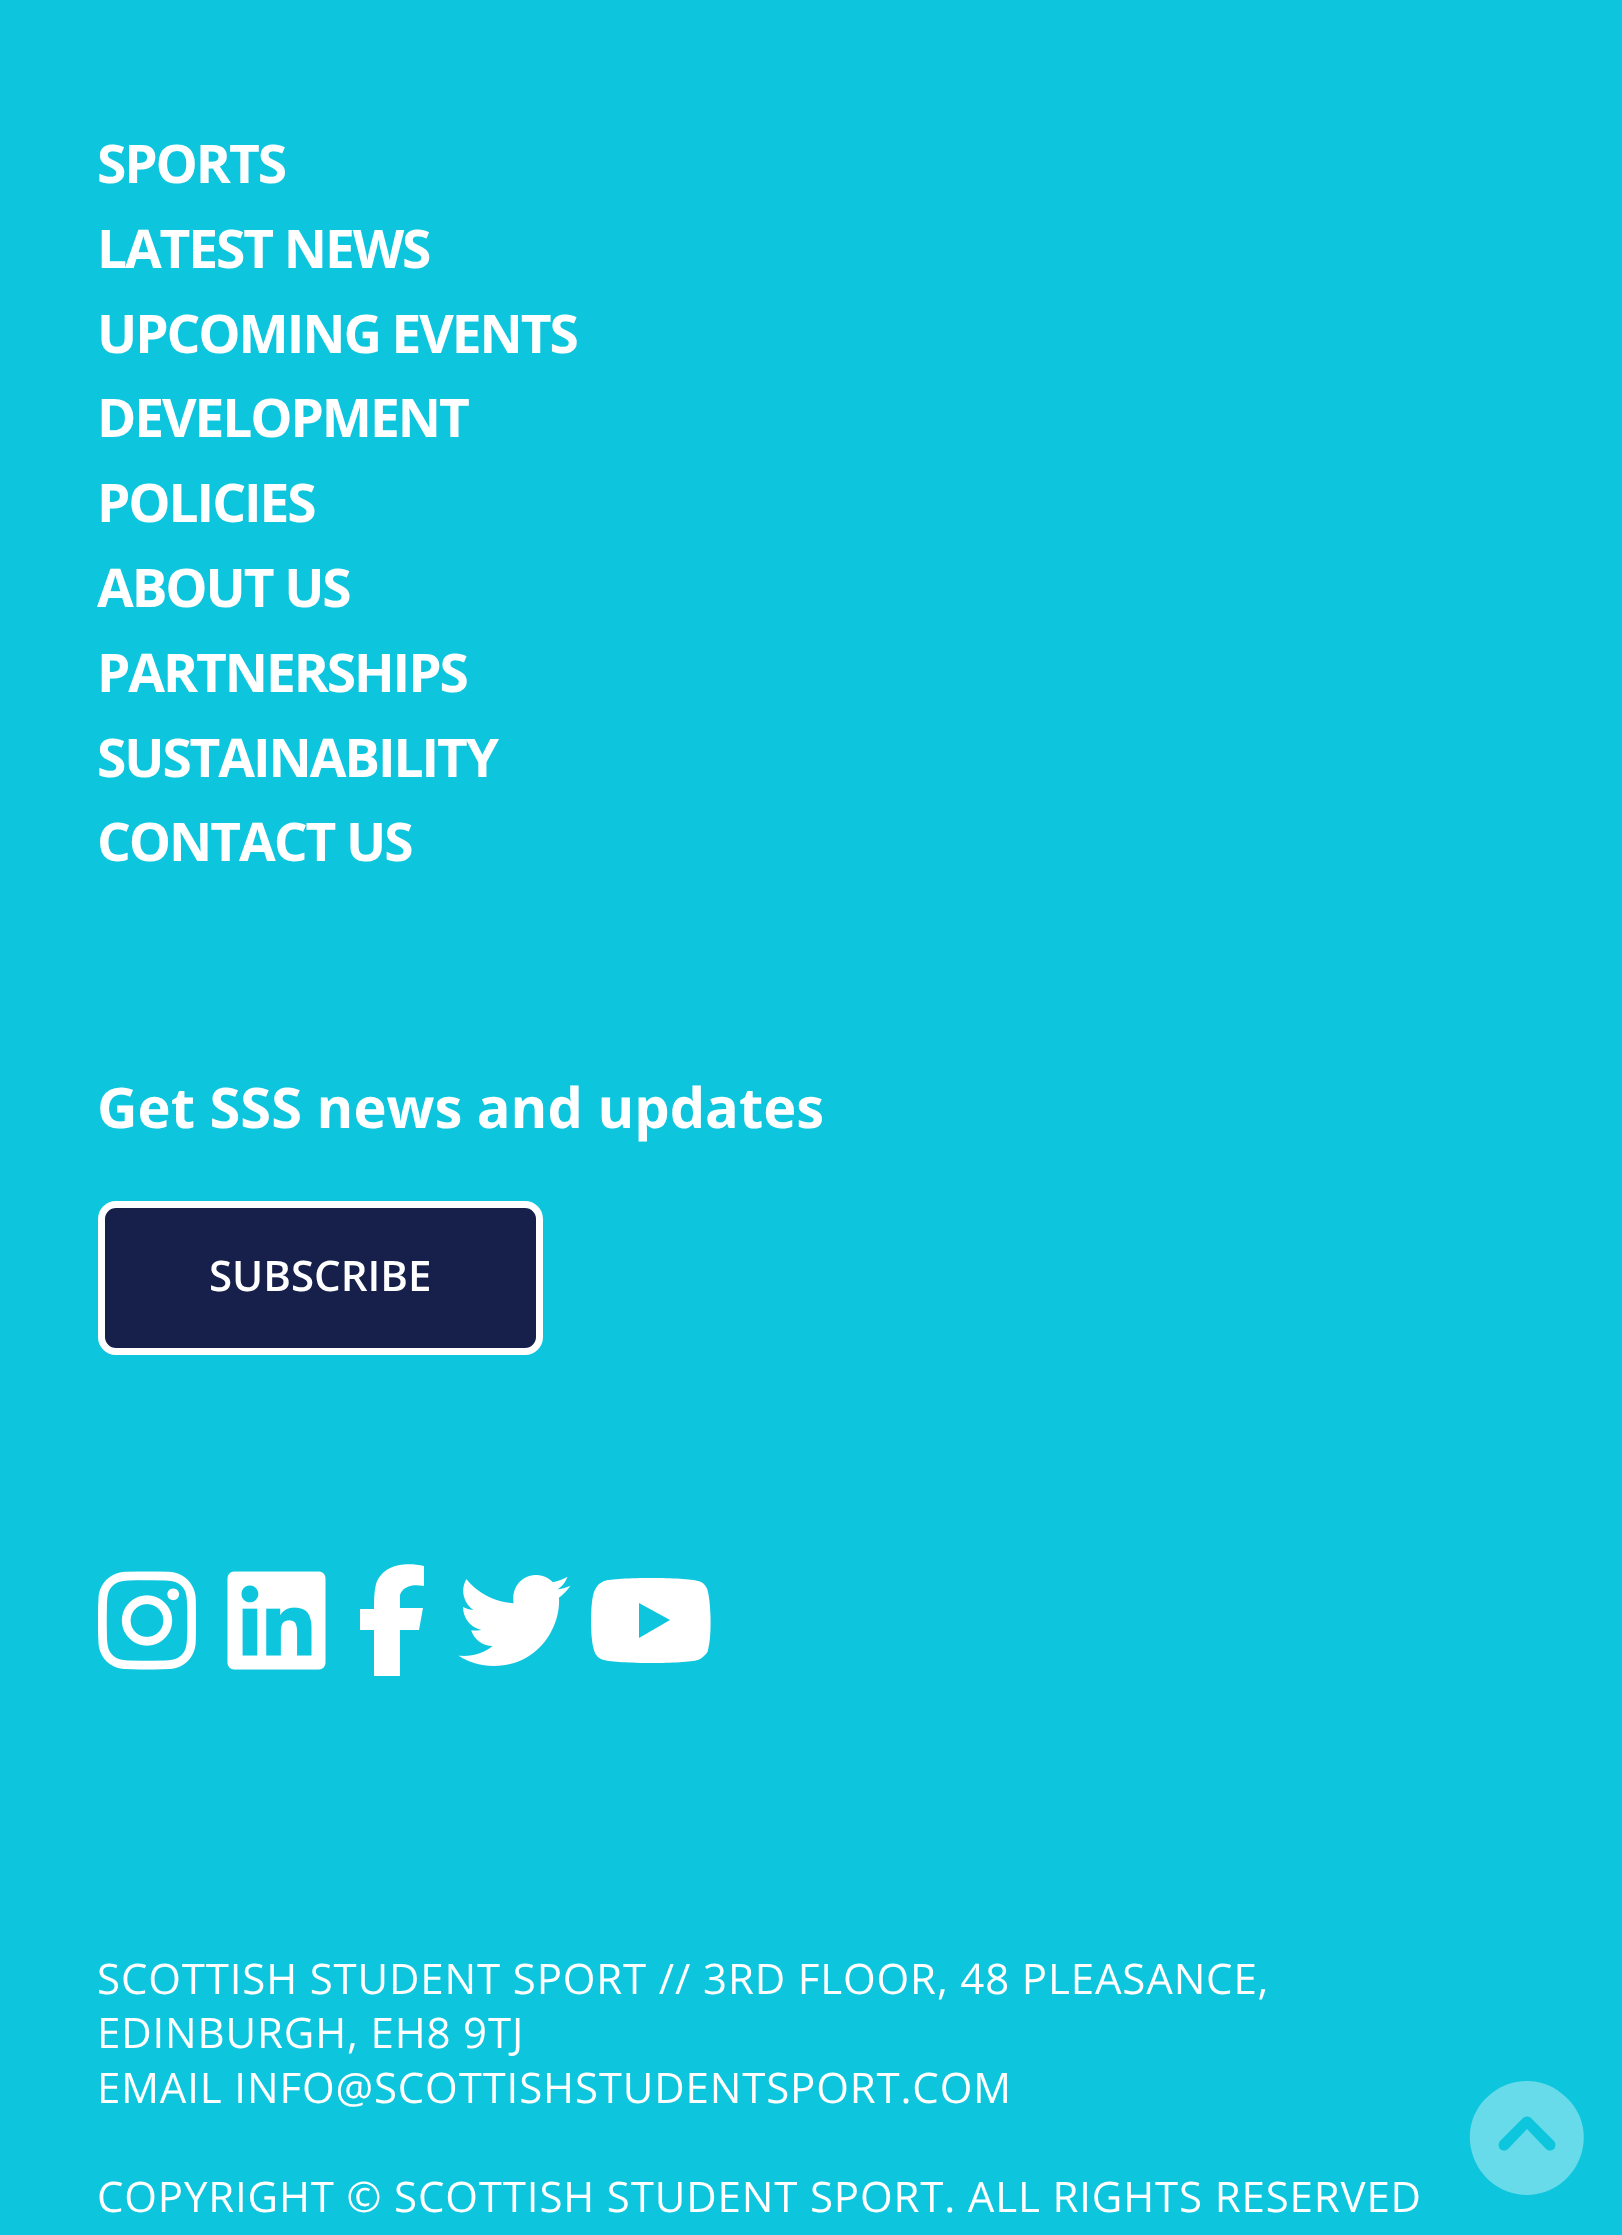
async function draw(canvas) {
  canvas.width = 1622;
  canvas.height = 2235;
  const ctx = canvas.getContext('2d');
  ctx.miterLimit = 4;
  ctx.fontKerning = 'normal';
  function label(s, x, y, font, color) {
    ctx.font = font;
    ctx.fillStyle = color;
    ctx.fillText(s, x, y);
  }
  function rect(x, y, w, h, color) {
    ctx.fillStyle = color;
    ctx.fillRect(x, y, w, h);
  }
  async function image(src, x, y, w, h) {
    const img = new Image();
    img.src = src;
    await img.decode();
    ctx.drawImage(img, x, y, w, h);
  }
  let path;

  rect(0, 0, 1622, 2235, '#0dc6de');
  ctx.letterSpacing = '-2.1px';
  label('SPORTS', 97, 183, 'bold 53.25px Open Sans', '#fff');
  label('LATEST NEWS', 97, 268, 'bold 53.25px Open Sans', '#fff');
  label('UPCOMING EVENTS', 97, 353, 'bold 53.25px Open Sans', '#fff');
  label('DEVELOPMENT', 97, 437, 'bold 53.25px Open Sans', '#fff');
  label('POLICIES', 97, 522, 'bold 53.25px Open Sans', '#fff');
  label('ABOUT US', 97, 607, 'bold 53.25px Open Sans', '#fff');
  label('PARTNERSHIPS', 97, 692, 'bold 53.25px Open Sans', '#fff');
  label('SUSTAINABILITY', 97, 777, 'bold 53.25px Open Sans', '#fff');
  label('CONTACT US', 97, 861, 'bold 53.25px Open Sans', '#fff');
  ctx.letterSpacing = '0px';
  label('Get SSS news and updates', 97, 1128, 'bold 56px Open Sans', '#fff');
  ctx.fillStyle = '#16204a';
  ctx.beginPath();
  ctx.roundRect(101.5, 1204.5, 438, 147, 14.5);
  ctx.fill();
  ctx.strokeStyle = '#fff';
  ctx.lineWidth = 7;
  ctx.stroke();
  label('SUBSCRIBE', 209, 1291, '600 42px Open Sans', '#fff');
  await image('assets/img1.png', 98, 1571, 98, 99);
  await image('assets/img2.png', 227, 1571, 99, 99);
  path = new Path2D('M374 1630V1676V1630V1676H400V1630H419L423 1608H400V1595C403 1585 415 1584 424 1586V1566C406 1562 383 1564 376 1584C374 1592 374 1600 374 1609H360V1630Z');
  ctx.fill(path);
  await image('assets/img3.png', 458, 1575, 113, 91);
  path = new Path2D('M708 1592C707 1586 703 1582 698 1581C686 1577 616 1577 604 1581L599 1584C597 1586 595 1589 594 1592C590 1603 590 1639 594 1650C595 1655 599 1659 604 1660C617 1664 685 1664 698 1660C700 1659 702 1658 704 1656C706 1654 708 1652 708 1650C712 1637 711 1605 708 1592ZM639 1638V1603V1638V1603L670 1620Z');
  ctx.fill(path);
  ctx.letterSpacing = '0.85px';
  label('SCOTTISH STUDENT SPORT // 3RD FLOOR, 48 PLEASANCE,', 97, 1994, '42px Open Sans', '#fff');
  label('EDINBURGH, EH8 9TJ', 97, 2048, '42px Open Sans', '#fff');
  label('EMAIL INFO@SCOTTISHSTUDENTSPORT.COM', 97, 2103, '42px Open Sans', '#fff');
  label('COPYRIGHT © SCOTTISH STUDENT SPORT. ALL RIGHTS RESERVED', 97, 2212, '42px Open Sans', '#fff');
  ctx.fillStyle = '#68dbea';
  path = new Path2D('M1527 2195C1581 2194 1605 2126 1561 2093C1552 2085 1539 2081 1527 2081C1514 2081 1502 2085 1492 2093C1449 2126 1473 2194 1527 2195ZM1554 2141C1556 2144 1556 2146 1554 2149C1551 2151 1549 2151 1546 2149L1527 2129L1508 2149C1505 2151 1503 2151 1500 2149C1498 2146 1498 2144 1500 2141L1523 2118C1526 2116 1528 2116 1531 2118Z');
  ctx.fill(path);
}

draw(document.querySelector('canvas'));
